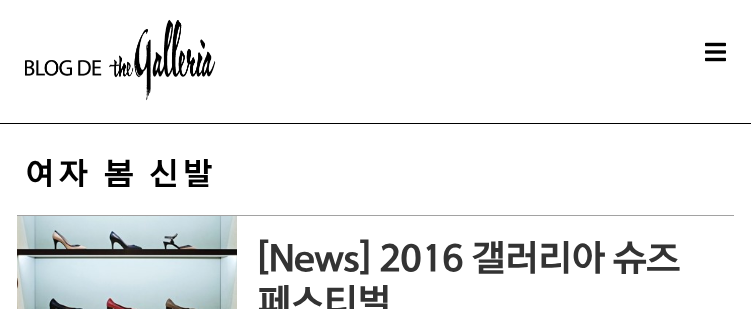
async function draw(canvas) {
  canvas.width = 751;
  canvas.height = 309;
  const ctx = canvas.getContext('2d');
  ctx.miterLimit = 4;
  ctx.fontKerning = 'normal';
  function label(s, x, y, font, color) {
    ctx.font = font;
    ctx.fillStyle = color;
    ctx.fillText(s, x, y);
  }
  function rect(x, y, w, h, color) {
    ctx.fillStyle = color;
    ctx.fillRect(x, y, w, h);
  }
  async function image(src, x, y, w, h) {
    const img = new Image();
    img.src = src;
    await img.decode();
    ctx.drawImage(img, x, y, w, h);
  }

  rect(0, 0, 751, 309, '#fff');
  rect(0, 123, 751, 1, '#000');
  await image('assets/img1.png', 25, 19, 191, 82);
  await image('assets/img2.png', 705, 42, 21, 20);
  ctx.letterSpacing = '5px';
  label('여자 봄 신발', 25, 183, 'bold 32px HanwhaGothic', '#000');
  rect(17, 215, 717, 1, '#a2a2a2');
  await image('assets/img3.png', 17, 216, 220, 93);
  ctx.letterSpacing = '0px';
  label('[News] 2016 갤러리아 슈즈', 257, 269, 'bold 37.25px HanwhaGothic', '#333');
  label('페스티벌', 257, 313, 'bold 37.25px HanwhaGothic', '#333');
}

draw(document.querySelector('canvas'));
